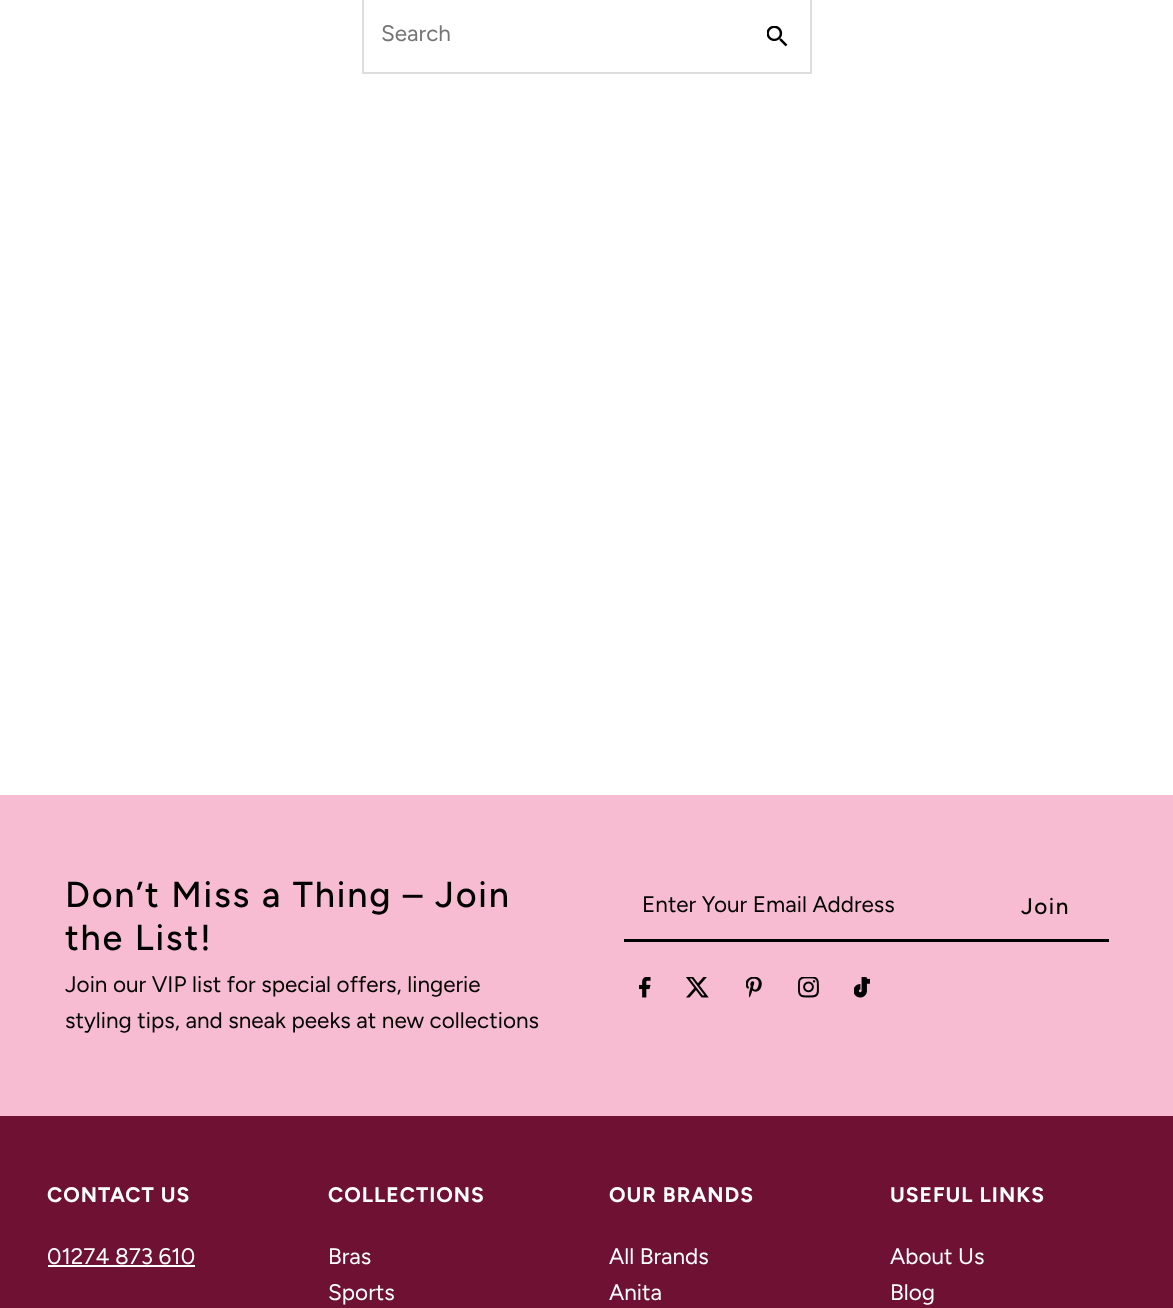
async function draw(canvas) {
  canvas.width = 1173;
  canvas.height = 1308;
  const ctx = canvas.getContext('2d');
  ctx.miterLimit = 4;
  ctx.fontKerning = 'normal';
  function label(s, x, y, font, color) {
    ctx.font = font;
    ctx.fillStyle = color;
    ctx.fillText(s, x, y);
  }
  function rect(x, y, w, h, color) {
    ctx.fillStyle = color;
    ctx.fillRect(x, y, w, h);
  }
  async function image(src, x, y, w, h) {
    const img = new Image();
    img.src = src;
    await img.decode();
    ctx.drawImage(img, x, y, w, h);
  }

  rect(0, 0, 1173, 1308, '#fff');
  ctx.strokeStyle = '#ddd';
  ctx.lineWidth = 2;
  ctx.strokeRect(363, -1, 448, 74);
  label('Search', 381, 41, '22.5px Figtree', '#757575');
  await image('assets/img1.png', 767, 26, 21, 21);
  rect(0, 795, 1173, 321, '#f8bcd2');
  ctx.letterSpacing = '1.8px';
  label('Don’t Miss a Thing – Join', 65, 907, '500 36px Figtree', '#000');
  label('the List!', 65, 950, '500 36px Figtree', '#000');
  ctx.letterSpacing = '0px';
  label('Join our VIP list for special offers, lingerie', 65, 992, '22.5px Figtree', '#000');
  label('styling tips, and sneak peeks at new collections', 65, 1028, '22.5px Figtree', '#000');
  rect(624, 939, 485, 3, '#000');
  label('Enter Your Email Address', 642, 912, '22.5px Figtree', '#000');
  ctx.letterSpacing = '1.5px';
  label('Join', 1021, 914, '500 22.5px Figtree', '#000');
  await image('assets/img2.png', 639, 977, 12, 21);
  await image('assets/img3.png', 686, 977, 23, 21);
  await image('assets/img4.png', 746, 977, 16, 21);
  await image('assets/img5.png', 798, 977, 21, 21);
  await image('assets/img6.png', 854, 977, 16, 21);
  rect(0, 1116, 1173, 192, '#6e1133');
  ctx.letterSpacing = '1px';
  label('CONTACT US', 47, 1202, 'bold 21px Figtree', '#fff');
  ctx.letterSpacing = '0px';
  label('01274 873 610', 47, 1264, '22.5px Figtree', '#fff');
  rect(48, 1265, 147, 2, '#fff');
  ctx.letterSpacing = '1px';
  label('COLLECTIONS', 328, 1202, 'bold 21px Figtree', '#fff');
  ctx.letterSpacing = '0px';
  label('Bras', 328, 1264, '22.5px Figtree', '#fff');
  label('Sports', 328, 1300, '22.5px Figtree', '#fff');
  ctx.letterSpacing = '1px';
  label('OUR BRANDS', 609, 1202, 'bold 21px Figtree', '#fff');
  ctx.letterSpacing = '0px';
  label('All Brands', 609, 1264, '22.5px Figtree', '#fff');
  label('Anita', 609, 1300, '22.5px Figtree', '#fff');
  ctx.letterSpacing = '1px';
  label('USEFUL LINKS', 890, 1202, 'bold 21px Figtree', '#fff');
  ctx.letterSpacing = '0px';
  label('About Us', 890, 1264, '22.5px Figtree', '#fff');
  label('Blog', 890, 1300, '22.5px Figtree', '#fff');
}

draw(document.querySelector('canvas'));
